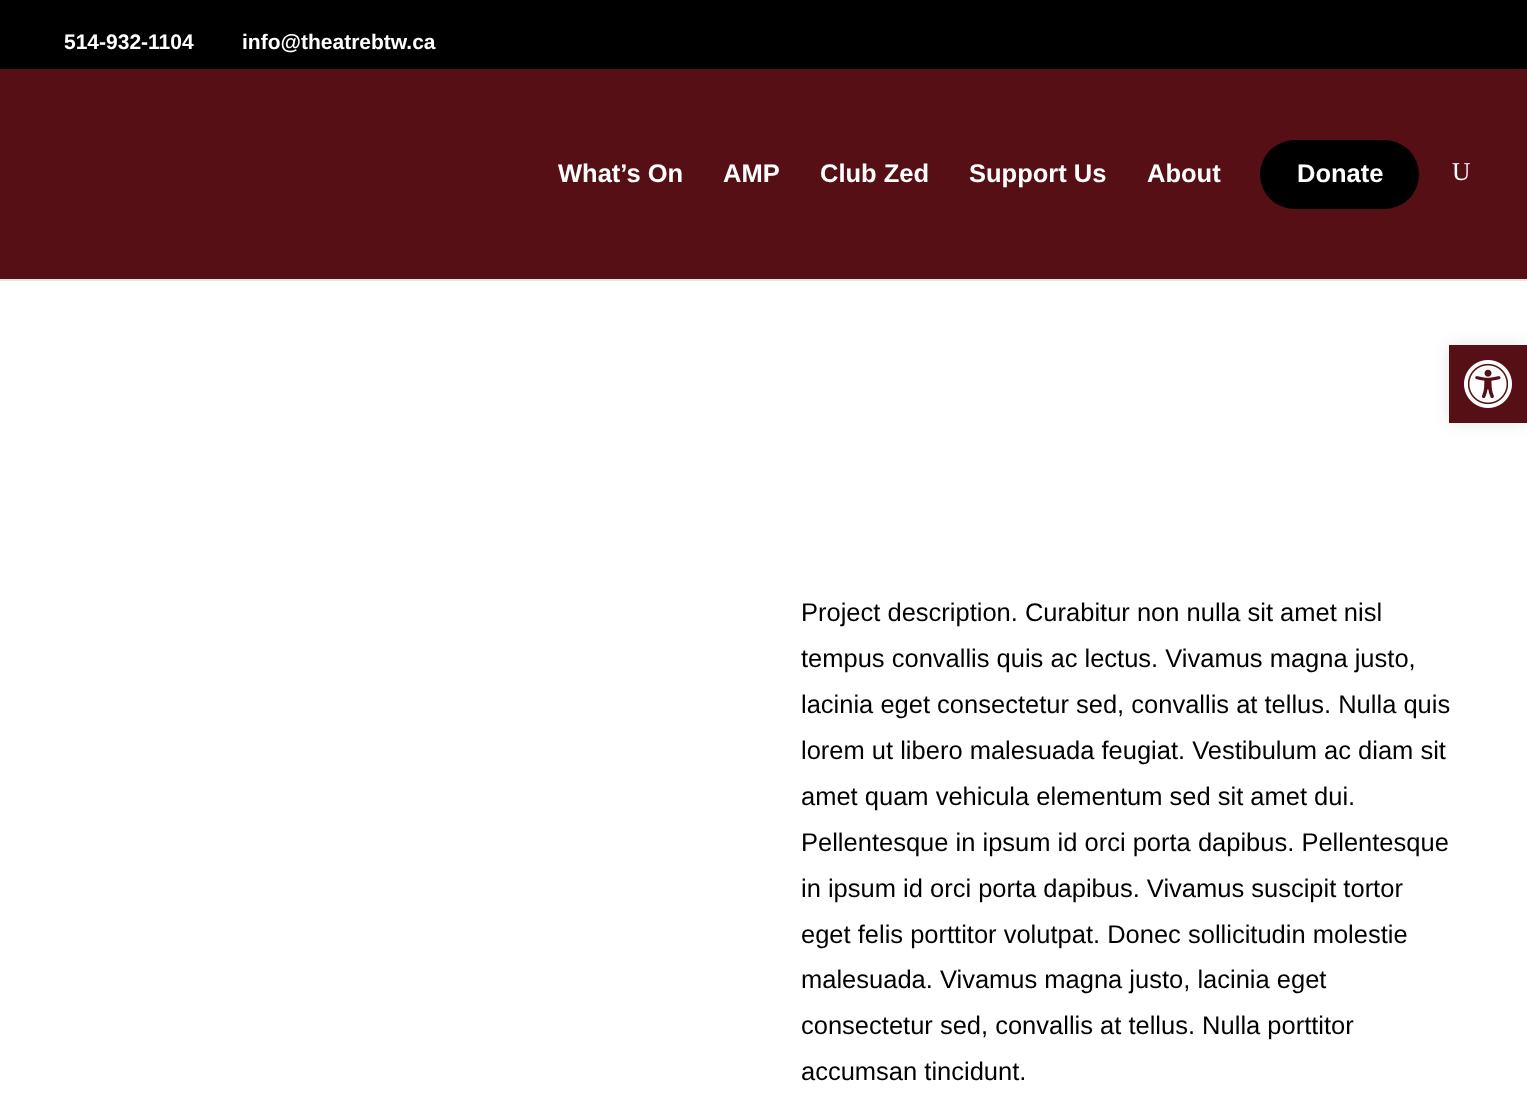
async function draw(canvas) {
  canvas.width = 1527;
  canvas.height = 1119;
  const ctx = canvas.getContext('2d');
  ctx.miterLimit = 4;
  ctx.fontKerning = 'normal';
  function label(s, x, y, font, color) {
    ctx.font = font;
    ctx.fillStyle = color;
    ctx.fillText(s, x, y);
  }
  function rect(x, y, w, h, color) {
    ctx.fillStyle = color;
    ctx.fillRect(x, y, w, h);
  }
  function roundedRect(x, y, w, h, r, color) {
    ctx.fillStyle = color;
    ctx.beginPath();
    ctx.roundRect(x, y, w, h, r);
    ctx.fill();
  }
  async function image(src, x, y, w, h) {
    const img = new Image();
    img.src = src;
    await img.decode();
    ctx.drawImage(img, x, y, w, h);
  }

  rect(0, 0, 1527, 1119, '#fff');
  rect(0, 0, 1527, 69, '#000');
  label('514-932-1104', 64, 49, 'bold 21px Liberation Sans', '#fff');
  label('info@theatrebtw.ca', 242, 49, 'bold 21px Liberation Sans', '#fff');
  rect(0, 279, 1527, 2, '#e6e6e6');
  rect(0, 69, 1527, 210, '#560f15');
  label('What’s On', 558, 182, 'bold 25.5px Liberation Sans', '#fff');
  label('AMP', 723, 182, 'bold 25.5px Liberation Sans', '#fff');
  label('Club Zed', 820, 182, 'bold 25.5px Liberation Sans', '#fff');
  label('Support Us', 969, 182, 'bold 25.5px Liberation Sans', '#fff');
  label('About', 1147, 182, 'bold 25.5px Liberation Sans', '#fff');
  roundedRect(1260, 140, 159, 69, 34.5, '#000');
  label('Donate', 1297, 182, 'bold 25.5px Liberation Sans', '#fff');
  label('U', 1452, 180, '25.5px Liberation Serif', '#fff');
  label('Project description. Curabitur non nulla sit amet nisl', 801, 621, '25.5px Liberation Sans', '#000');
  label('tempus convallis quis ac lectus. Vivamus magna justo,', 801, 667, '25.5px Liberation Sans', '#000');
  label('lacinia eget consectetur sed, convallis at tellus. Nulla quis', 801, 713, '25.5px Liberation Sans', '#000');
  label('lorem ut libero malesuada feugiat. Vestibulum ac diam sit', 801, 759, '25.5px Liberation Sans', '#000');
  label('amet quam vehicula elementum sed sit amet dui.', 801, 805, '25.5px Liberation Sans', '#000');
  label('Pellentesque in ipsum id orci porta dapibus. Pellentesque', 801, 851, '25.5px Liberation Sans', '#000');
  label('in ipsum id orci porta dapibus. Vivamus suscipit tortor', 801, 897, '25.5px Liberation Sans', '#000');
  label('eget felis porttitor volutpat. Donec sollicitudin molestie', 801, 943, '25.5px Liberation Sans', '#000');
  label('malesuada. Vivamus magna justo, lacinia eget', 801, 988, '25.5px Liberation Sans', '#000');
  label('consectetur sed, convallis at tellus. Nulla porttitor', 801, 1034, '25.5px Liberation Sans', '#000');
  label('accumsan tincidunt.', 801, 1080, '25.5px Liberation Sans', '#000');
  ctx.fillStyle = '#0000001a';
  ctx.filter = 'blur(7.5px)';
  ctx.beginPath();
  ctx.rect(1449, 345, 78, 78);
  ctx.fill();
  ctx.filter = 'none';
  rect(1449, 345, 78, 78, '#560f15');
  await image('assets/img1.png', 1464, 360, 48, 48);
}

draw(document.querySelector('canvas'));
